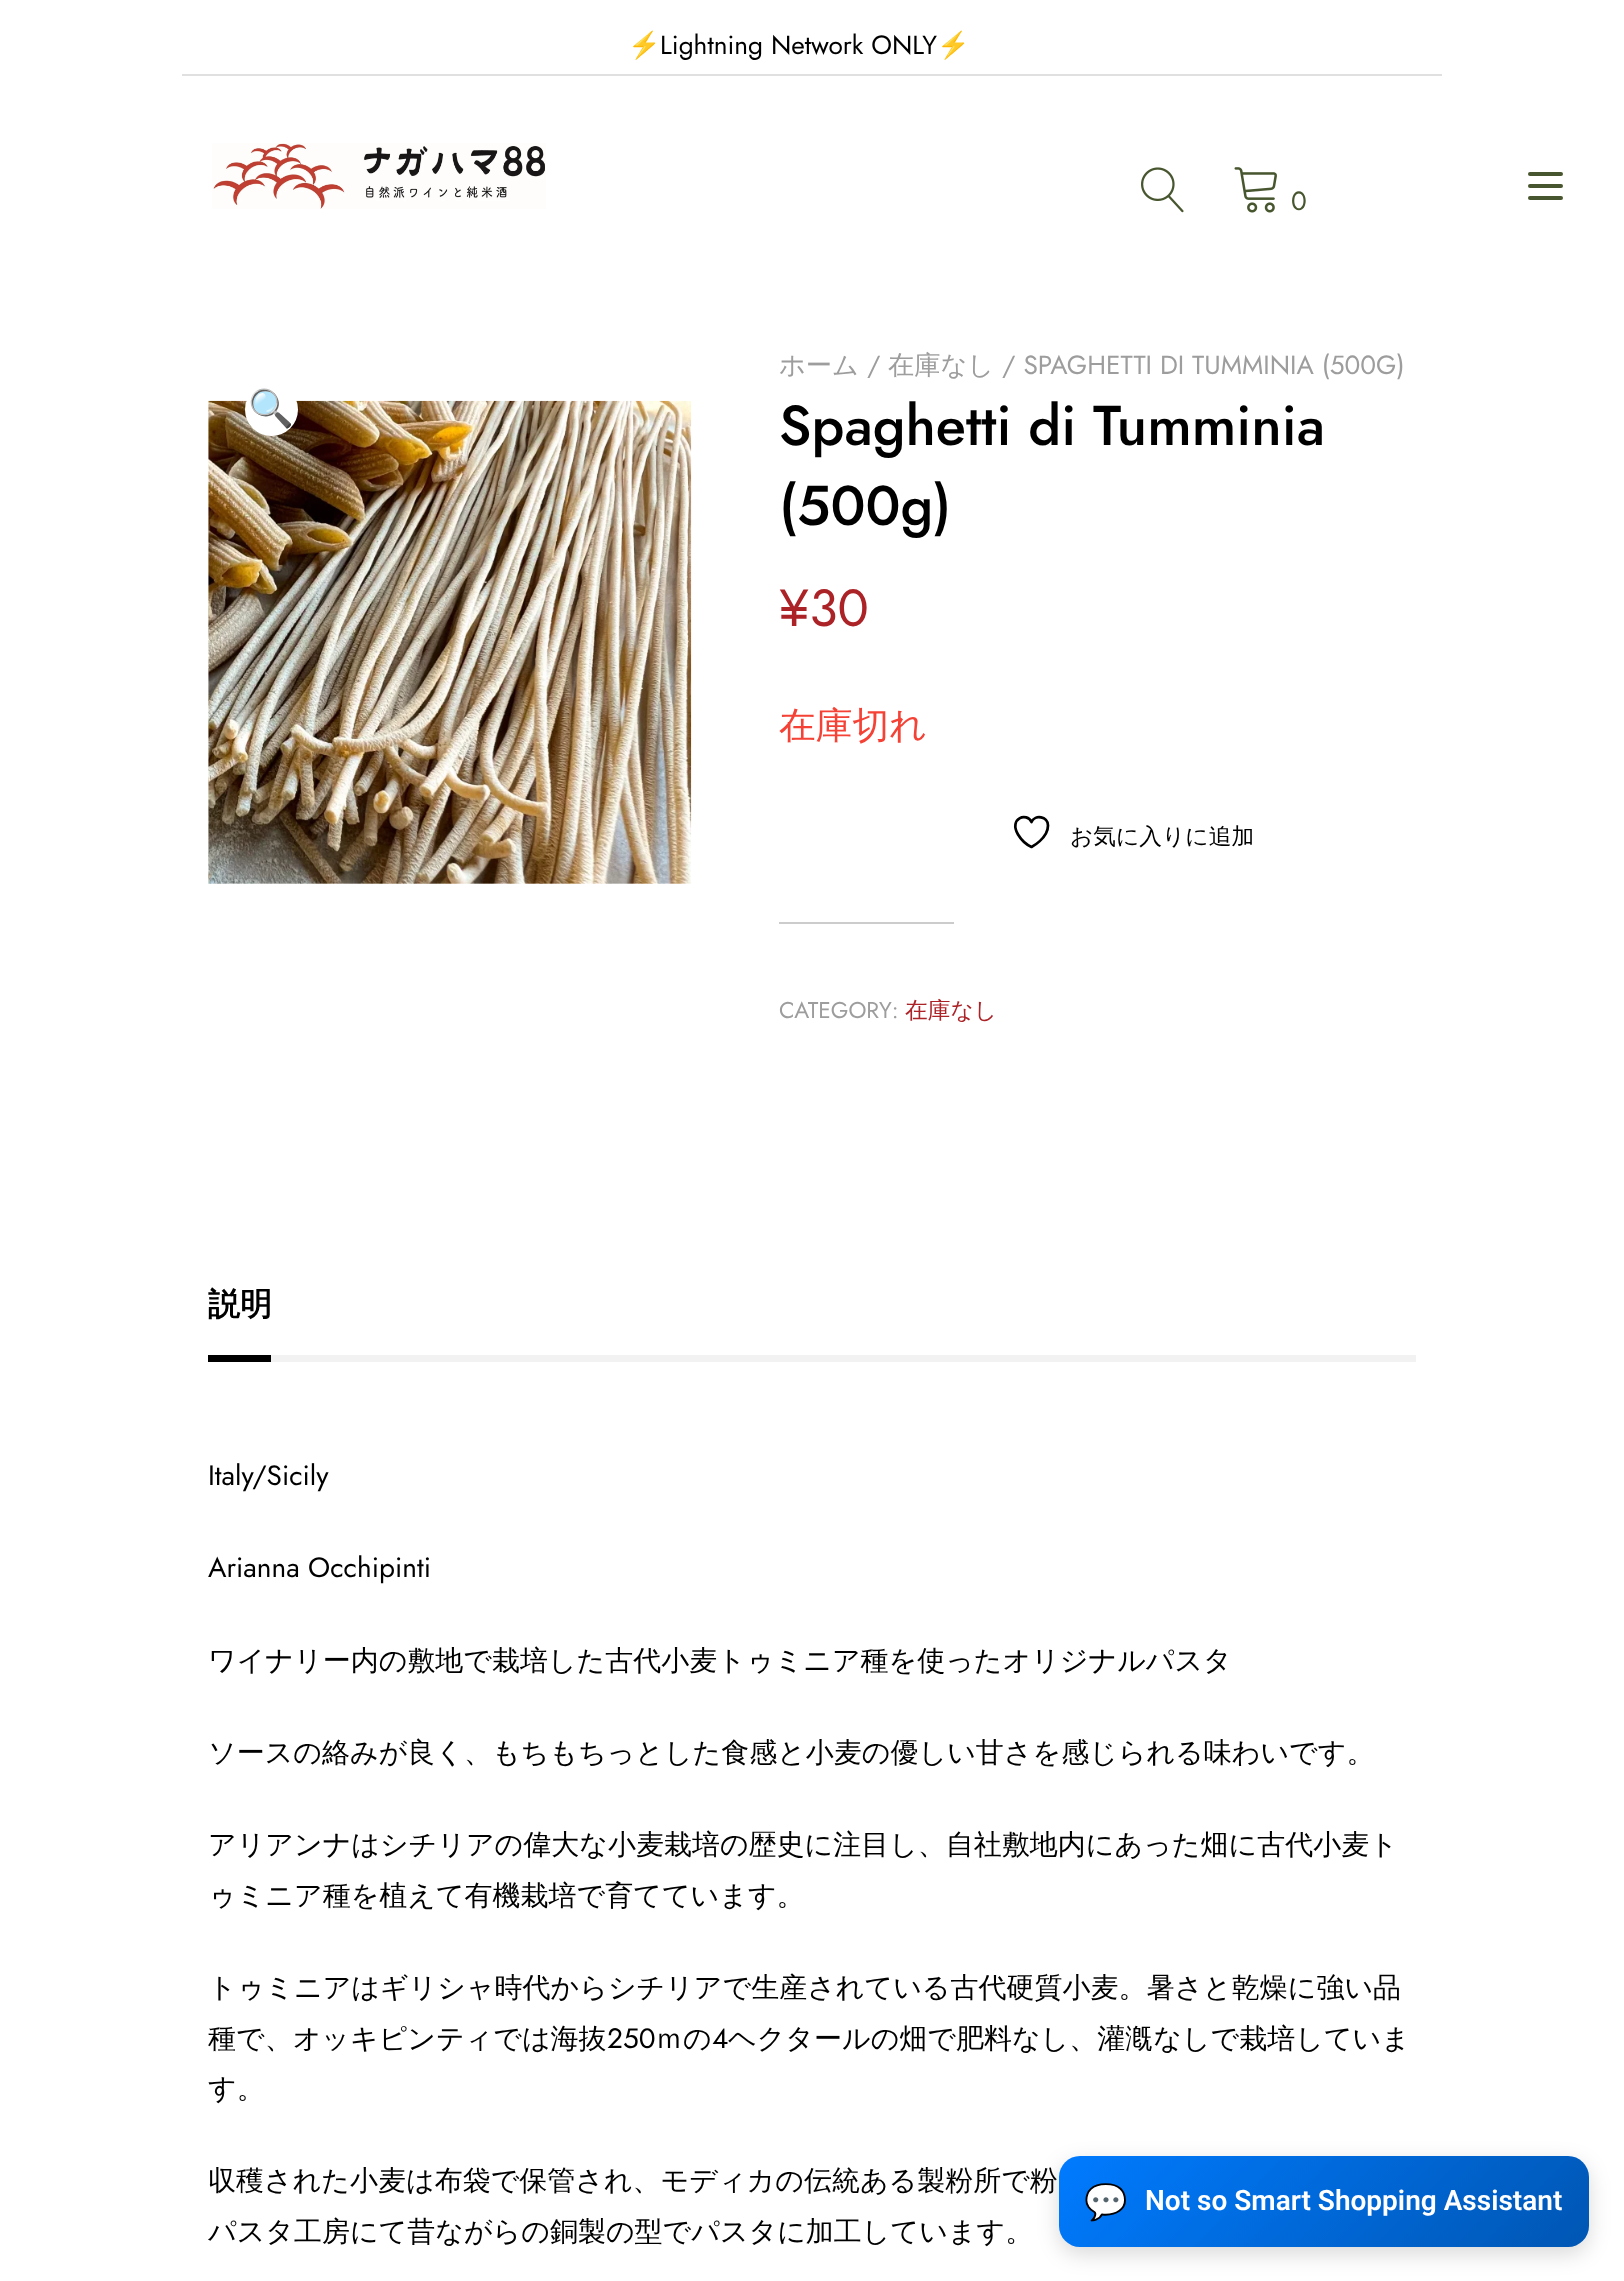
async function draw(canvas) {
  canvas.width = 1624;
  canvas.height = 2281;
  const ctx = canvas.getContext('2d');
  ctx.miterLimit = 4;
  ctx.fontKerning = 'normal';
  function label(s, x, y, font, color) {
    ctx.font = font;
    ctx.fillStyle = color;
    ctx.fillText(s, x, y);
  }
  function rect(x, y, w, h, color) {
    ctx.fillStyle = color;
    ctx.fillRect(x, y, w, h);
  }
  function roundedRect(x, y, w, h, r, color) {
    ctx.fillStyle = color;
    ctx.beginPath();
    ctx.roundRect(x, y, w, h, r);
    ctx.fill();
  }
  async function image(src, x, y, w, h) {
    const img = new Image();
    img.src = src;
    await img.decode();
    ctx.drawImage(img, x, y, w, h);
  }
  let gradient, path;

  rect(0, 0, 1624, 2281, '#fff');
  rect(182, 74, 1260, 2, '#e0e0e0');
  label('⚡', 628, 54, '26.25px Noto Color Emoji', '#000');
  label('Lightning Network ONLY', 660, 54, '26.25px Jost', '#000');
  label('⚡', 937, 54, '26.25px Noto Color Emoji', '#000');
  await image('assets/img1.png', 212, 143, 334, 66);
  await image('assets/img2.png', 1141, 167, 43, 46);
  await image('assets/img3.png', 1234, 167, 43, 46);
  label('0', 1291, 210, '26.25px Jost', '#47562f');
  roundedRect(1528, 172, 35, 4, 2, '#47562f');
  roundedRect(1528, 184, 35, 4, 2, '#47562f');
  roundedRect(1528, 196, 35, 4, 2, '#47562f');
  await image('assets/img4.png', 208, 400, 484, 484);
  ctx.fillStyle = '#fff';
  ctx.beginPath();
  ctx.arc(271.5, 409.5, 26.5, 0, 2 * Math.PI);
  ctx.fill();
  label('🔍', 248, 421, '36.75px Noto Color Emoji', '#404040');
  label('ホーム', 779, 374, '500 26.25px WenQuanYi Zen Hei', '#9d9d9d');
  label('/', 867, 374, '26.25px Jost', '#9d9d9d');
  label('在庫なし', 888, 374, '500 26.25px WenQuanYi Zen Hei', '#9d9d9d');
  label('/ SPAGHETTI DI TUMMINIA (500G)', 1002, 374, '26.25px Jost', '#9d9d9d');
  label('Spaghetti di Tumminia', 779, 445, '500 56px Jost', '#000');
  label('(500g)', 779, 525, '500 56px Jost', '#000');
  label('¥30', 779, 626, '52px Jost', '#ac2327');
  label('在庫切れ', 779, 738, '500 36.75px WenQuanYi Zen Hei', '#f44336');
  path = new Path2D('M1048 825.5C1048 816.5 1035 814 1031.5 822C1027 812 1008.5 818 1018 834.5C1021 839.5 1026 844.5 1031.5 847C1031.5 847 1048 838.5 1048 825.5Z');
  ctx.strokeStyle = '#000';
  ctx.lineWidth = 2.7;
  ctx.lineCap = 'round';
  ctx.lineJoin = 'round';
  ctx.stroke(path);
  label('お気に入りに追加', 1070, 844, '500 22.75px WenQuanYi Zen Hei', '#000');
  rect(779, 922, 175, 2, '#ccc');
  label('CATEGORY:', 779, 1018, '22.75px Jost', '#9d9d9d');
  label('在庫なし', 905, 1018, '500 22.75px WenQuanYi Zen Hei', '#ac2327');
  rect(271, 1355, 1145, 7, '#f2f2f2');
  rect(208, 1355, 63, 7, '#000');
  label('説明', 208, 1315, 'bold 32px WenQuanYi Zen Hei', '#000');
  label('Italy/Sicily', 208, 1485, '28px Jost', '#000');
  label('Arianna Occhipinti', 208, 1577, '28px Jost', '#000');
  label('ワイナリー内の敷地で栽培した古代小麦トゥミニア種を使ったオリジナルパスタ', 208, 1670, '500 28px WenQuanYi Zen Hei', '#000');
  label('ソースの絡みが良く、もちもちっとした食感と小麦の優しい甘さを感じられる味わいです。', 208, 1762, '500 28px WenQuanYi Zen Hei', '#000');
  label('アリアンナはシチリアの偉大な小麦栽培の歴史に注目し、自社敷地内にあった畑に古代小麦ト', 208, 1854, '500 28px WenQuanYi Zen Hei', '#000');
  label('ゥミニア種を植えて有機栽培で育てています。', 208, 1905, '500 28px WenQuanYi Zen Hei', '#000');
  label('トゥミニアはギリシャ時代からシチリアで生産されている古代硬質小麦。暑さと乾燥に強い品', 208, 1997, '500 28px WenQuanYi Zen Hei', '#000');
  label('種で、オッキピンティでは海抜', 208, 2048, '500 28px WenQuanYi Zen Hei', '#000');
  label('250', 607, 2048, '28px Jost', '#000');
  label('ｍの', 655, 2048, '500 28px WenQuanYi Zen Hei', '#000');
  label('4', 712, 2048, '28px Jost', '#000');
  label('ヘクタールの畑で肥料なし、灌漑なしで栽培していま', 728, 2048, '500 28px WenQuanYi Zen Hei', '#000');
  label('す。', 208, 2098, '500 28px WenQuanYi Zen Hei', '#000');
  label('収穫された小麦は布袋で保管され、モディカの伝統ある製粉所で粉', 208, 2190, '500 28px WenQuanYi Zen Hei', '#000');
  label('パスタ工房にて昔ながらの銅製の型でパスタに加工しています。', 208, 2241, '500 28px WenQuanYi Zen Hei', '#000');
  ctx.fillStyle = '#00000026';
  ctx.filter = 'blur(10.5px)';
  ctx.beginPath();
  ctx.roundRect(1059, 2163, 530, 91, 21);
  ctx.fill();
  ctx.filter = 'none';
  gradient = ctx.createLinearGradient(1169, 2046, 1479, 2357);
  gradient.addColorStop(0, '#007bff');
  gradient.addColorStop(1, '#0056b3');
  ctx.fillStyle = gradient;
  ctx.beginPath();
  ctx.roundRect(1059, 2156, 530, 91, 21);
  ctx.fill();
  label('💬', 1084, 2214, 'bold 35px Noto Color Emoji', '#fff');
  label('Not so Smart Shopping Assistant', 1145, 2210, '600 28px Roboto', '#fff');
}

draw(document.querySelector('canvas'));
